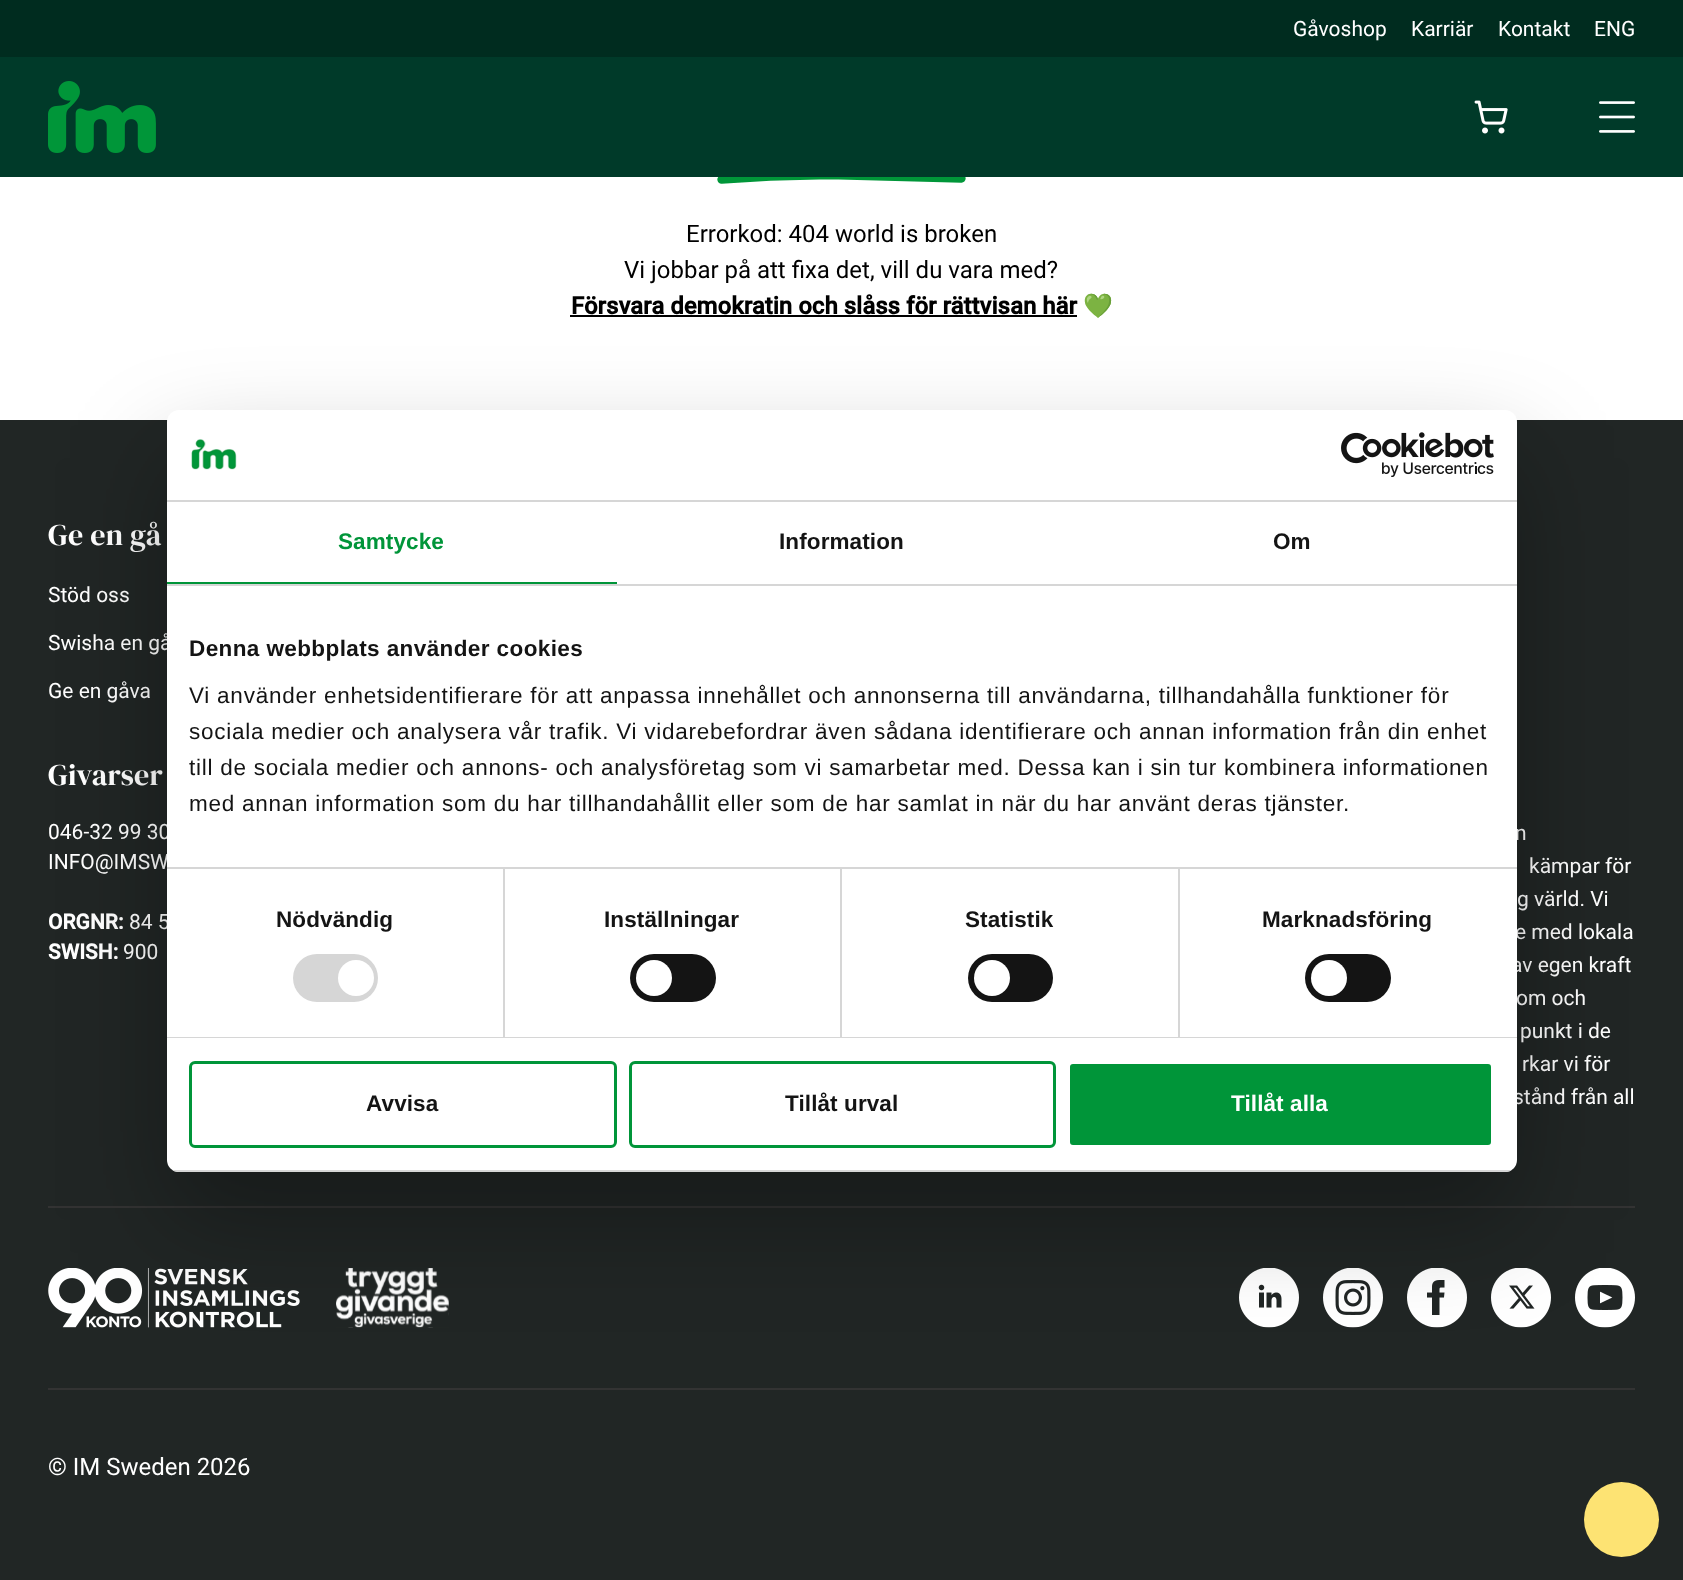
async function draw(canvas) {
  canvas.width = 1683;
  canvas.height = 1580;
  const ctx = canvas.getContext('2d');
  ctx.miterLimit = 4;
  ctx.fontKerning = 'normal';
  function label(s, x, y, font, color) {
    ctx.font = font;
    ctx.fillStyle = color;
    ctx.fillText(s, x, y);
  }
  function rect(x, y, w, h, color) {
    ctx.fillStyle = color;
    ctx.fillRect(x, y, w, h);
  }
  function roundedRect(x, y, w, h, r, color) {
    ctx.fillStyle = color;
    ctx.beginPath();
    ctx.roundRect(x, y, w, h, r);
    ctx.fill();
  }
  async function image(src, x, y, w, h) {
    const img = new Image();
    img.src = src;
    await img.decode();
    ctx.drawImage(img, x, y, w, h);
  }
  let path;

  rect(0, 0, 1683, 1580, '#fff');
  rect(0, 0, 1683, 57, '#002c1f');
  label('Gåvoshop', 1293, 36, '21px Roboto', '#fff');
  label('Karriär', 1411, 36, '21px Roboto', '#fff');
  label('Kontakt', 1498, 36, '21px Roboto', '#fff');
  label('ENG', 1594, 36, '21px Roboto', '#fff');
  path = new Path2D('M721.5 179.5L770 176.5L829 175L961.5 178.5');
  ctx.strokeStyle = '#009639';
  ctx.lineWidth = 8.4;
  ctx.lineCap = 'round';
  ctx.stroke(path);
  rect(0, 57, 1683, 120, '#003a29');
  await image('assets/img1.png', 48, 81, 108, 72);
  await image('assets/img2.png', 1474, 100, 34, 34);
  await image('assets/img3.png', 1599, 101, 36, 32);
  label('Errorkod: 404 world is broken', 686, 242, '24px Roboto', '#000');
  label('Vi jobbar på att fixa det, vill du vara med?', 624, 278, '24px Roboto', '#000');
  label('Försvara demokratin och slåss för rättvisan här', 571, 314, 'bold 24px Roboto', '#000');
  rect(570, 315, 507, 2, '#000');
  label('💚', 1083, 314, '24px Noto Color Emoji', '#000');
  rect(0, 420, 1683, 1160, '#212625');
  ctx.letterSpacing = '0.25px';
  label('Ge en gå', 48, 545, '30px DM Serif Display', '#fff');
  ctx.letterSpacing = '0px';
  label('Stöd oss', 48, 602, '21px Roboto', '#fff');
  label('Swisha en gå', 48, 650, '21px Roboto', '#fff');
  label('Ge en gåva', 48, 698, '21px Roboto', '#fff');
  ctx.letterSpacing = '0.25px';
  label('Givarser', 48, 785, '30px DM Serif Display', '#fff');
  ctx.letterSpacing = '0px';
  label('046-32 99 30', 48, 839, '21px Roboto', '#fff');
  label('INFO@IMSW', 48, 869, '21px Roboto', '#fff');
  label('ORGNR:', 48, 929, 'bold 21px Roboto', '#fff');
  label('84 5', 129, 929, '21px Roboto', '#fff');
  label('SWISH:', 48, 959, 'bold 21px Roboto', '#fff');
  label('900', 123, 959, '21px Roboto', '#fff');
  label('n', 1515, 840, '21px Roboto', '#fff');
  label('kämpar för', 1529, 873, '21px Roboto', '#fff');
  label('g värld. Vi', 1517, 906, '21px Roboto', '#fff');
  label('e med lokala', 1515, 939, '21px Roboto', '#fff');
  label('av egen kraft', 1511, 972, '21px Roboto', '#fff');
  label('om och', 1516, 1005, '21px Roboto', '#fff');
  label('punkt i de', 1520, 1038, '21px Roboto', '#fff');
  label('rkar vi för', 1522, 1071, '21px Roboto', '#fff');
  label('stånd från all', 1513, 1104, '21px Roboto', '#fff');
  rect(48, 1206, 1587, 2, '#333');
  rect(48, 1388, 1587, 2, '#333');
  await image('assets/img4.png', 48, 1268, 252, 60);
  await image('assets/img5.png', 336, 1268, 113, 60);
  await image('assets/img6.png', 1239, 1268, 60, 60);
  await image('assets/img7.png', 1323, 1268, 60, 60);
  await image('assets/img8.png', 1407, 1268, 60, 60);
  await image('assets/img9.png', 1491, 1268, 60, 60);
  await image('assets/img10.png', 1575, 1268, 60, 60);
  label('© IM Sweden 2026', 48, 1475, '24px Roboto', '#fff');
  ctx.fillStyle = '#0000004d';
  ctx.filter = 'blur(51px)';
  ctx.beginPath();
  ctx.roundRect(167, 458, 1350, 762, 12);
  ctx.fill();
  ctx.filter = 'none';
  roundedRect(167, 410, 1350, 762, 12, '#fff');
  rect(167, 500, 1350, 2, '#d6d6d6');
  await image('assets/img11.png', 191, 439, 46, 31);
  await image('assets/img12.png', 1341, 432, 153, 45);
  rect(167, 584, 1350, 2, '#d6d6d6');
  rect(167, 582, 450, 2, '#009539');
  ctx.letterSpacing = '0.1px';
  label('Samtycke', 338, 549, 'bold 22.5px Liberation Sans', '#009539');
  label('Information', 779, 549, 'bold 22.5px Liberation Sans', '#141414');
  label('Om', 1273, 549, 'bold 22.5px Liberation Sans', '#141414');
  rect(167, 867, 1350, 2, '#d6d6d6');
  ctx.letterSpacing = '0.4px';
  label('Denna webbplats använder cookies', 189, 656, 'bold 22.5px Liberation Sans', '#141414');
  ctx.letterSpacing = '0.75px';
  label('Vi använder enhetsidentifierare för att anpassa innehållet och annonserna till användarna, tillhandahålla funktioner för', 189, 703, '22.5px Liberation Sans', '#141414');
  label('sociala medier och analysera vår trafik. Vi vidarebefordrar även sådana identifierare och annan information från din enhet', 189, 739, '22.5px Liberation Sans', '#141414');
  label('till de sociala medier och annons- och analysföretag som vi samarbetar med. Dessa kan i sin tur kombinera informationen', 189, 775, '22.5px Liberation Sans', '#141414');
  label('med annan information som du har tillhandahållit eller som de har samlat in när du har använt deras tjänster.', 189, 811, '22.5px Liberation Sans', '#141414');
  rect(167, 1037, 1350, 1, '#d6d6d6');
  rect(503, 869, 2, 168, '#d6d6d6');
  ctx.letterSpacing = '0.1px';
  label('Nödvändig', 276, 927, 'bold 22.5px Liberation Sans', '#141414');
  roundedRect(293, 954, 85, 48, 24, '#d6d6d6');
  ctx.fillStyle = '#fff';
  ctx.beginPath();
  ctx.arc(356, 978, 18, 0, 2 * Math.PI);
  ctx.fill();
  rect(840, 869, 2, 168, '#d6d6d6');
  label('Inställningar', 604, 927, 'bold 22.5px Liberation Sans', '#141414');
  roundedRect(630, 954, 86, 48, 24, '#141414');
  ctx.fillStyle = '#fff';
  ctx.beginPath();
  ctx.arc(654, 978, 18, 0, 2 * Math.PI);
  ctx.fill();
  rect(1178, 869, 2, 168, '#d6d6d6');
  label('Statistik', 965, 927, 'bold 22.5px Liberation Sans', '#141414');
  roundedRect(968, 954, 85, 48, 24, '#141414');
  ctx.fillStyle = '#fff';
  ctx.beginPath();
  ctx.arc(992, 978, 18, 0, 2 * Math.PI);
  ctx.fill();
  label('Marknadsföring', 1262, 927, 'bold 22.5px Liberation Sans', '#141414');
  roundedRect(1305, 954, 86, 48, 24, '#141414');
  ctx.fillStyle = '#fff';
  ctx.beginPath();
  ctx.arc(1329, 978, 18, 0, 2 * Math.PI);
  ctx.fill();
  ctx.save();
  ctx.beginPath();
  ctx.roundRect(167, 410, 1350, 762, 12);
  ctx.clip();
  rect(167, 1170, 1350, 2, '#d6d6d6');
  ctx.restore();
  ctx.beginPath();
  ctx.roundRect(190.5, 1062.5, 425, 84, 4.5);
  ctx.strokeStyle = '#009539';
  ctx.lineWidth = 3;
  ctx.stroke();
  label('Avvisa', 366, 1111, 'bold 22.5px Liberation Sans', '#141414');
  ctx.beginPath();
  ctx.roundRect(630.5, 1062.5, 424, 84, 4.5);
  ctx.stroke();
  label('Tillåt urval', 785, 1111, 'bold 22.5px Liberation Sans', '#141414');
  ctx.fillStyle = '#009539';
  ctx.beginPath();
  ctx.roundRect(1068.5, 1062.5, 424, 84, 4.5);
  ctx.fill();
  ctx.strokeStyle = '#fff';
  ctx.stroke();
  label('Tillåt alla', 1231, 1111, 'bold 22.5px Liberation Sans', '#fff');
  ctx.fillStyle = '#fde373';
  ctx.beginPath();
  ctx.arc(1621.5, 1519.5, 37.5, 0, 2 * Math.PI);
  ctx.fill();
}

draw(document.querySelector('canvas'));
